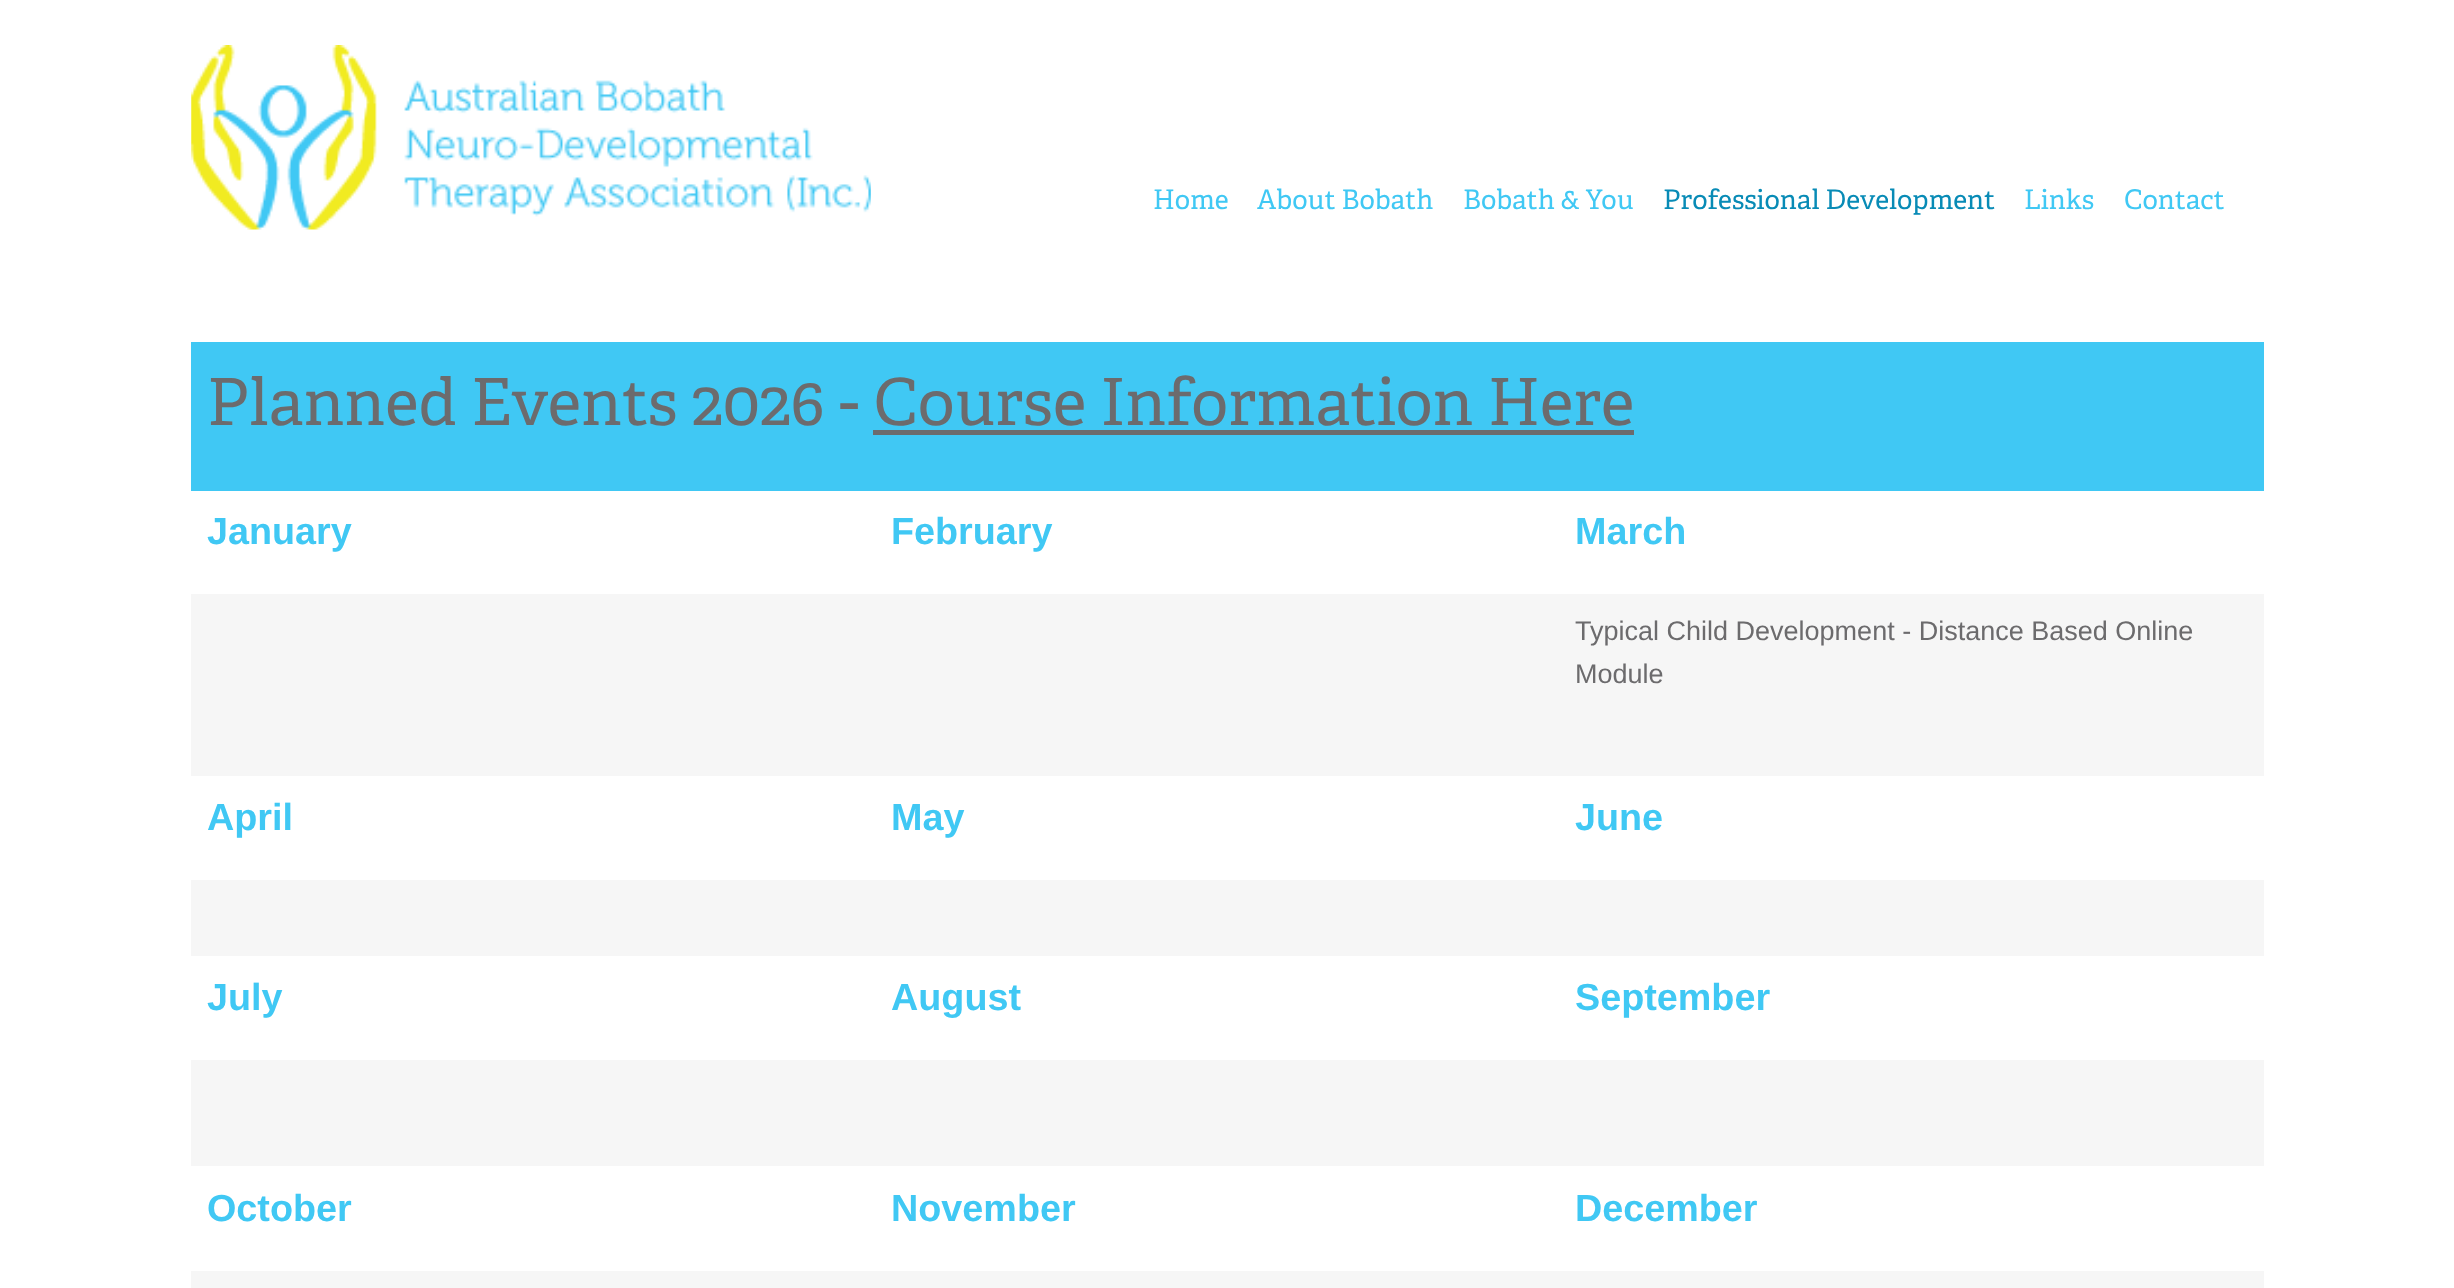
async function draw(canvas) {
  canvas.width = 2454;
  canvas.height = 1288;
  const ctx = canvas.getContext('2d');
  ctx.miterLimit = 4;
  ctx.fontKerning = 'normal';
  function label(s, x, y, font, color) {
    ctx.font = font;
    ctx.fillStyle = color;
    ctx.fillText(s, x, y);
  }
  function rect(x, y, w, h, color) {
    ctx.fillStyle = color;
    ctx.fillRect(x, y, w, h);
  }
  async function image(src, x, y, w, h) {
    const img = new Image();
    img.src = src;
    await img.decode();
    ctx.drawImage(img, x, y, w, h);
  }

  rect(0, 0, 2454, 1288, '#fff');
  await image('assets/img1.png', 191, 45, 680, 185);
  label('Home', 1153, 209, '27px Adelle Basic', '#40c8f4');
  label('About Bobath', 1257, 209, '27px Adelle Basic', '#40c8f4');
  label('Bobath & You', 1463, 209, '27px Adelle Basic', '#40c8f4');
  label('Professional Development', 1663, 209, '27px Adelle Basic', '#088bb6');
  label('Links', 2024, 209, '27px Adelle Basic', '#40c8f4');
  label('Contact', 2124, 209, '27px Adelle Basic', '#40c8f4');
  rect(191, 594, 2073, 694, '#f6f6f6');
  rect(191, 342, 2073, 149, '#40c8f4');
  label('Planned Events 2026 - Course Information Here', 207, 425, '64.8px Adelle Basic', '#6c6b6d');
  rect(873, 430, 761, 5, '#6c6b6d');
  label('January', 207, 544, 'bold 37.75px Liberation Sans', '#40c8f4');
  label('February', 891, 544, 'bold 37.75px Liberation Sans', '#40c8f4');
  label('March', 1575, 544, 'bold 37.75px Liberation Sans', '#40c8f4');
  label('Typical Child Development - Distance Based Online', 1575, 640, '27px Liberation Sans', '#6c6b6d');
  label('Module', 1575, 683, '27px Liberation Sans', '#6c6b6d');
  rect(191, 776, 2073, 104, '#fff');
  label('April', 207, 830, 'bold 37.75px Liberation Sans', '#40c8f4');
  label('May', 891, 830, 'bold 37.75px Liberation Sans', '#40c8f4');
  label('June', 1575, 830, 'bold 37.75px Liberation Sans', '#40c8f4');
  rect(191, 956, 2073, 104, '#fff');
  label('July', 207, 1010, 'bold 37.75px Liberation Sans', '#40c8f4');
  label('August', 891, 1010, 'bold 37.75px Liberation Sans', '#40c8f4');
  label('September', 1575, 1010, 'bold 37.75px Liberation Sans', '#40c8f4');
  rect(191, 1166, 2073, 105, '#fff');
  label('October', 207, 1221, 'bold 37.75px Liberation Sans', '#40c8f4');
  label('November', 891, 1221, 'bold 37.75px Liberation Sans', '#40c8f4');
  label('December', 1575, 1221, 'bold 37.75px Liberation Sans', '#40c8f4');
}

draw(document.querySelector('canvas'));
